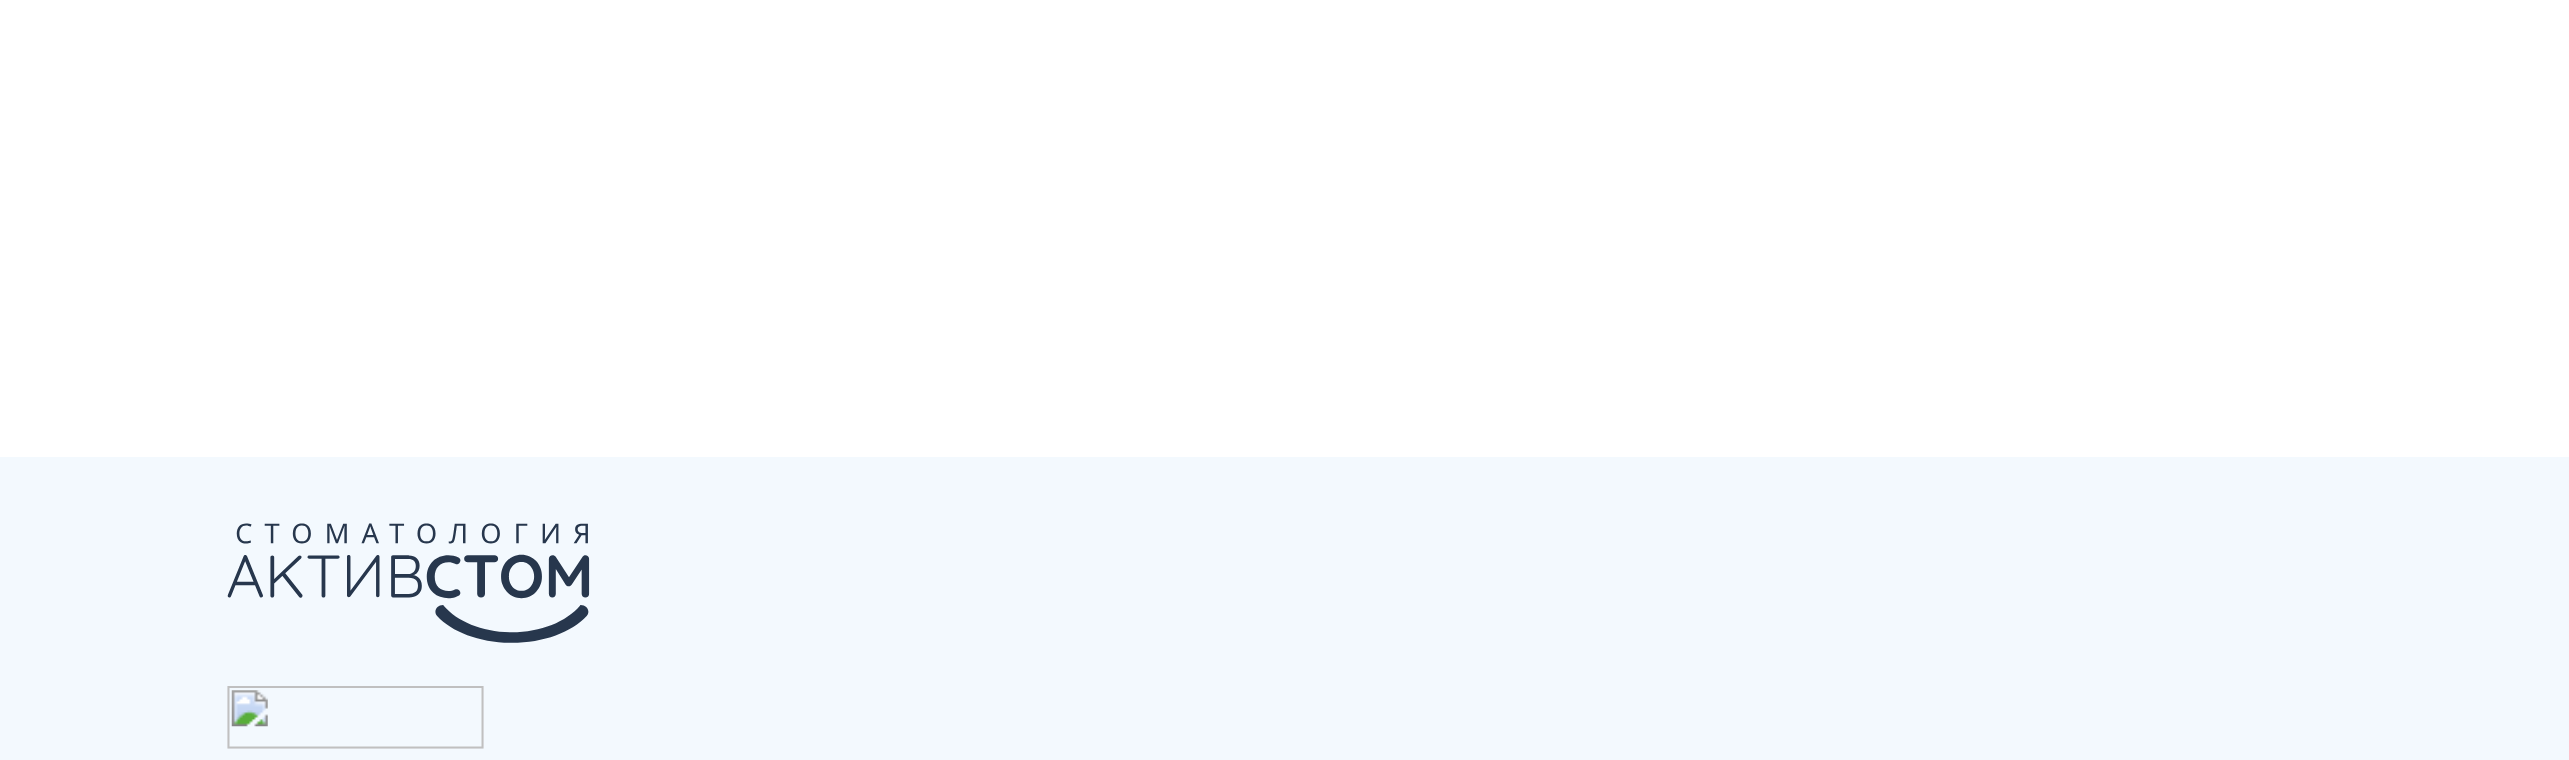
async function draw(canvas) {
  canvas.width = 2569;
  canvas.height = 760;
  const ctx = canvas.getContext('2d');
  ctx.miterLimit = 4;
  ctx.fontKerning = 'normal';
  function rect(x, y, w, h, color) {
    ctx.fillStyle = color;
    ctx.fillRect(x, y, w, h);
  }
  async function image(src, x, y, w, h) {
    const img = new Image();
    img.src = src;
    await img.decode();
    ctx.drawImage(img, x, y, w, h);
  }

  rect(0, 0, 2569, 760, '#fff');
  rect(0, 457, 2569, 303, '#f3f9fe');
  await image('assets/img1.png', 227, 523, 363, 120);
  await image('assets/img2.png', 227, 686, 257, 63);
}

draw(document.querySelector('canvas'));
